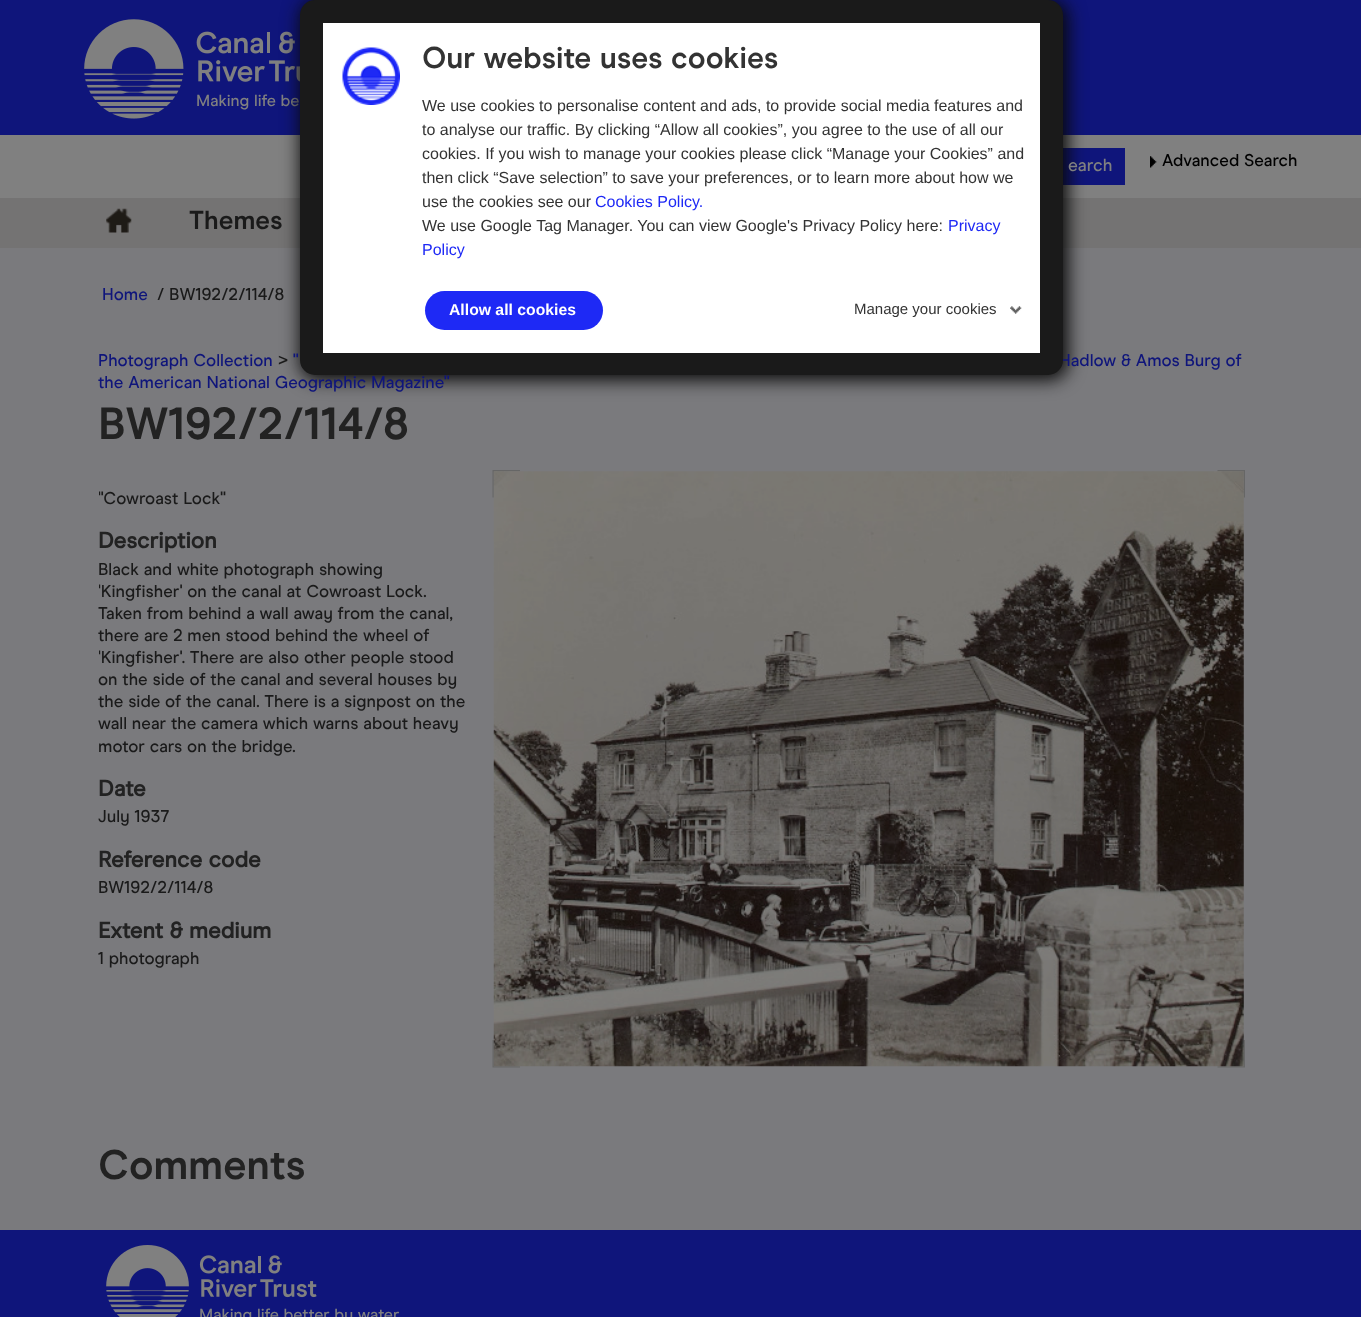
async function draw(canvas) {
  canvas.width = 1361;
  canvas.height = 1317;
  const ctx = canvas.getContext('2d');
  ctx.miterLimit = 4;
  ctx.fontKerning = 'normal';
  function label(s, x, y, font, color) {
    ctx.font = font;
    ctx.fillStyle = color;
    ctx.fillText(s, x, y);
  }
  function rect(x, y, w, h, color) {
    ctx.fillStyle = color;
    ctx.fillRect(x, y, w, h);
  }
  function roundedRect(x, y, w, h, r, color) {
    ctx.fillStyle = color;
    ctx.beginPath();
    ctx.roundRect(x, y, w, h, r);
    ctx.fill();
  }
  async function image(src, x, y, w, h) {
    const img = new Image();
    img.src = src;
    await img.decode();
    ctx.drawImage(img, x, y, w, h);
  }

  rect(0, 0, 1361, 1317, '#7a7a7d');
  rect(0, 0, 1361, 135, '#0f157b');
  label('Making life be', 196, 106, '500 16.25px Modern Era', '#808080');
  await image('assets/img3.png', 84, 19, 216, 100);
  rect(0, 135, 1361, 63, '#808080');
  rect(1063, 148, 62, 37, '#0f157b');
  rect(0, 198, 1361, 50, '#747373');
  ctx.fillStyle = '#090909';
  ctx.filter = 'blur(9px)';
  ctx.beginPath();
  ctx.roundRect(300, 0, 768, 380, 18);
  ctx.fill();
  ctx.filter = 'none';
  label('Hadlow & Amos Burg of', 1059, 366, '500 17px Modern Era', '#0f157b');
  ctx.beginPath();
  ctx.roundRect(311.5, 11.5, 740, 352, 3.5);
  ctx.strokeStyle = '#1a1a1a';
  ctx.lineWidth = 23;
  ctx.stroke();
  rect(323, 23, 717, 330, '#fff');
  await image('assets/img1.png', 342, 47, 58, 58);
  label('Our website uses cookies', 422, 68, 'bold 30px Modern Era', '#333');
  label('We use cookies to personalise content and ads, to provide social media features and', 422, 111, '16px Liberation Sans', '#333');
  label('to analyse our traffic. By clicking “Allow all cookies”, you agree to the use of all our', 422, 135, '16px Liberation Sans', '#333');
  label('cookies. If you wish to manage your cookies please click “Manage your Cookies” and', 422, 159, '16px Liberation Sans', '#333');
  label('then click “Save selection” to save your preferences, or to learn more about how we', 422, 183, '16px Liberation Sans', '#333');
  label('use the cookies see our', 422, 207, '16px Liberation Sans', '#333');
  label('Cookies Policy.', 595, 207, '16px Liberation Sans', '#1e29f5');
  label('We use Google Tag Manager. You can view Google\'s Privacy Policy here:', 422, 231, '16px Liberation Sans', '#333');
  label('Privacy', 948, 231, '16px Liberation Sans', '#1e29f5');
  label('Policy', 422, 255, '16px Liberation Sans', '#1e29f5');
  roundedRect(425, 291, 178, 39, 19.5, '#1e29f5');
  label('Allow all cookies', 449, 315, 'bold 15.75px Liberation Sans', '#fff');
  await image('assets/img2.png', 1010, 306, 12, 8);
  label('Manage your cookies', 854, 314, '15px Liberation Sans', '#333');
  label('earch', 1068, 171, '500 17.5px Modern Era', '#808080');
  await image('assets/img4.png', 1150, 156, 7, 12);
  label('Advanced Search', 1162, 166, '500 17px Modern Era', '#000');
  await image('assets/img5.png', 106, 208, 26, 25);
  label('Themes', 189, 229, 'bold 26px Modern Era', '#1a1a1a');
  label('Home', 102, 300, '500 17px Modern Era', '#0f157b');
  label('/ BW192/2/114/8', 157, 300, '500 17px Modern Era', '#1a1a1a');
  label('Photograph Collection', 98, 366, '500 17px Modern Era', '#0f157b');
  label('>', 278, 366, '500 17px Modern Era', '#1a1a1a');
  label('"', 293, 366, '500 17px Modern Era', '#0f157b');
  label('the American National Geographic Magazine"', 98, 388, '500 17px Modern Era', '#0f157b');
  label('BW192/2/114/8', 98, 439, 'bold 45px Modern Era', '#222');
  ctx.save();
  ctx.beginPath();
  ctx.rect(99, 458, 369, 513);
  ctx.clip();
  label('"Cowroast Lock"', 98, 504, '500 17px Modern Era', '#1a1a1a');
  ctx.restore();
  label('Description', 98, 548, 'bold 22.5px "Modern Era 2"', '#222');
  label('Black and white photograph showing', 98, 575, '500 17px Modern Era', '#1a1a1a');
  ctx.save();
  ctx.beginPath();
  ctx.rect(99, 458, 369, 513);
  ctx.clip();
  label('\'Kingfisher\' on the canal at Cowroast Lock.', 98, 597, '500 17px Modern Era', '#1a1a1a');
  ctx.restore();
  label('Taken from behind a wall away from the canal,', 98, 619, '500 17px Modern Era', '#1a1a1a');
  label('there are 2 men stood behind the wheel of', 98, 641, '500 17px Modern Era', '#1a1a1a');
  ctx.save();
  ctx.beginPath();
  ctx.rect(99, 458, 369, 513);
  ctx.clip();
  label('\'Kingfisher\'. There are also other people stood', 98, 663, '500 17px Modern Era', '#1a1a1a');
  ctx.restore();
  label('on the side of the canal and several houses by', 98, 685, '500 17px Modern Era', '#1a1a1a');
  label('the side of the canal. There is a signpost on the', 98, 707, '500 17px Modern Era', '#1a1a1a');
  label('wall near the camera which warns about heavy', 98, 729, '500 17px Modern Era', '#1a1a1a');
  label('motor cars on the bridge.', 98, 752, '500 17px Modern Era', '#1a1a1a');
  label('Date', 98, 796, 'bold 22.5px "Modern Era 2"', '#222');
  label('July 1937', 98, 822, '500 17px Modern Era', '#1a1a1a');
  label('Reference code', 98, 867, 'bold 22.5px "Modern Era 2"', '#222');
  label('BW192/2/114/8', 98, 893, '500 17px Modern Era', '#1a1a1a');
  label('Extent & medium', 98, 938, 'bold 22.5px "Modern Era 2"', '#222');
  label('1 photograph', 98, 964, '500 17px Modern Era', '#1a1a1a');
  await image('assets/img6.png', 492, 470, 28, 28);
  await image('assets/img7.png', 1217, 470, 28, 28);
  await image('assets/img9.png', 492, 1040, 28, 28);
  await image('assets/img10.png', 1217, 1040, 28, 28);
  await image('assets/img8.png', 493, 471, 751, 596);
  label('Comments', 98, 1179, 'bold 41.25px Modern Era', '#222');
  rect(0, 1230, 1361, 87, '#0f157b');
  await image('assets/img11.png', 106, 1245, 211, 72);
  label('Making life better by water', 199, 1320, '500 16.25px Modern Era', '#808080');
}

draw(document.querySelector('canvas'));
